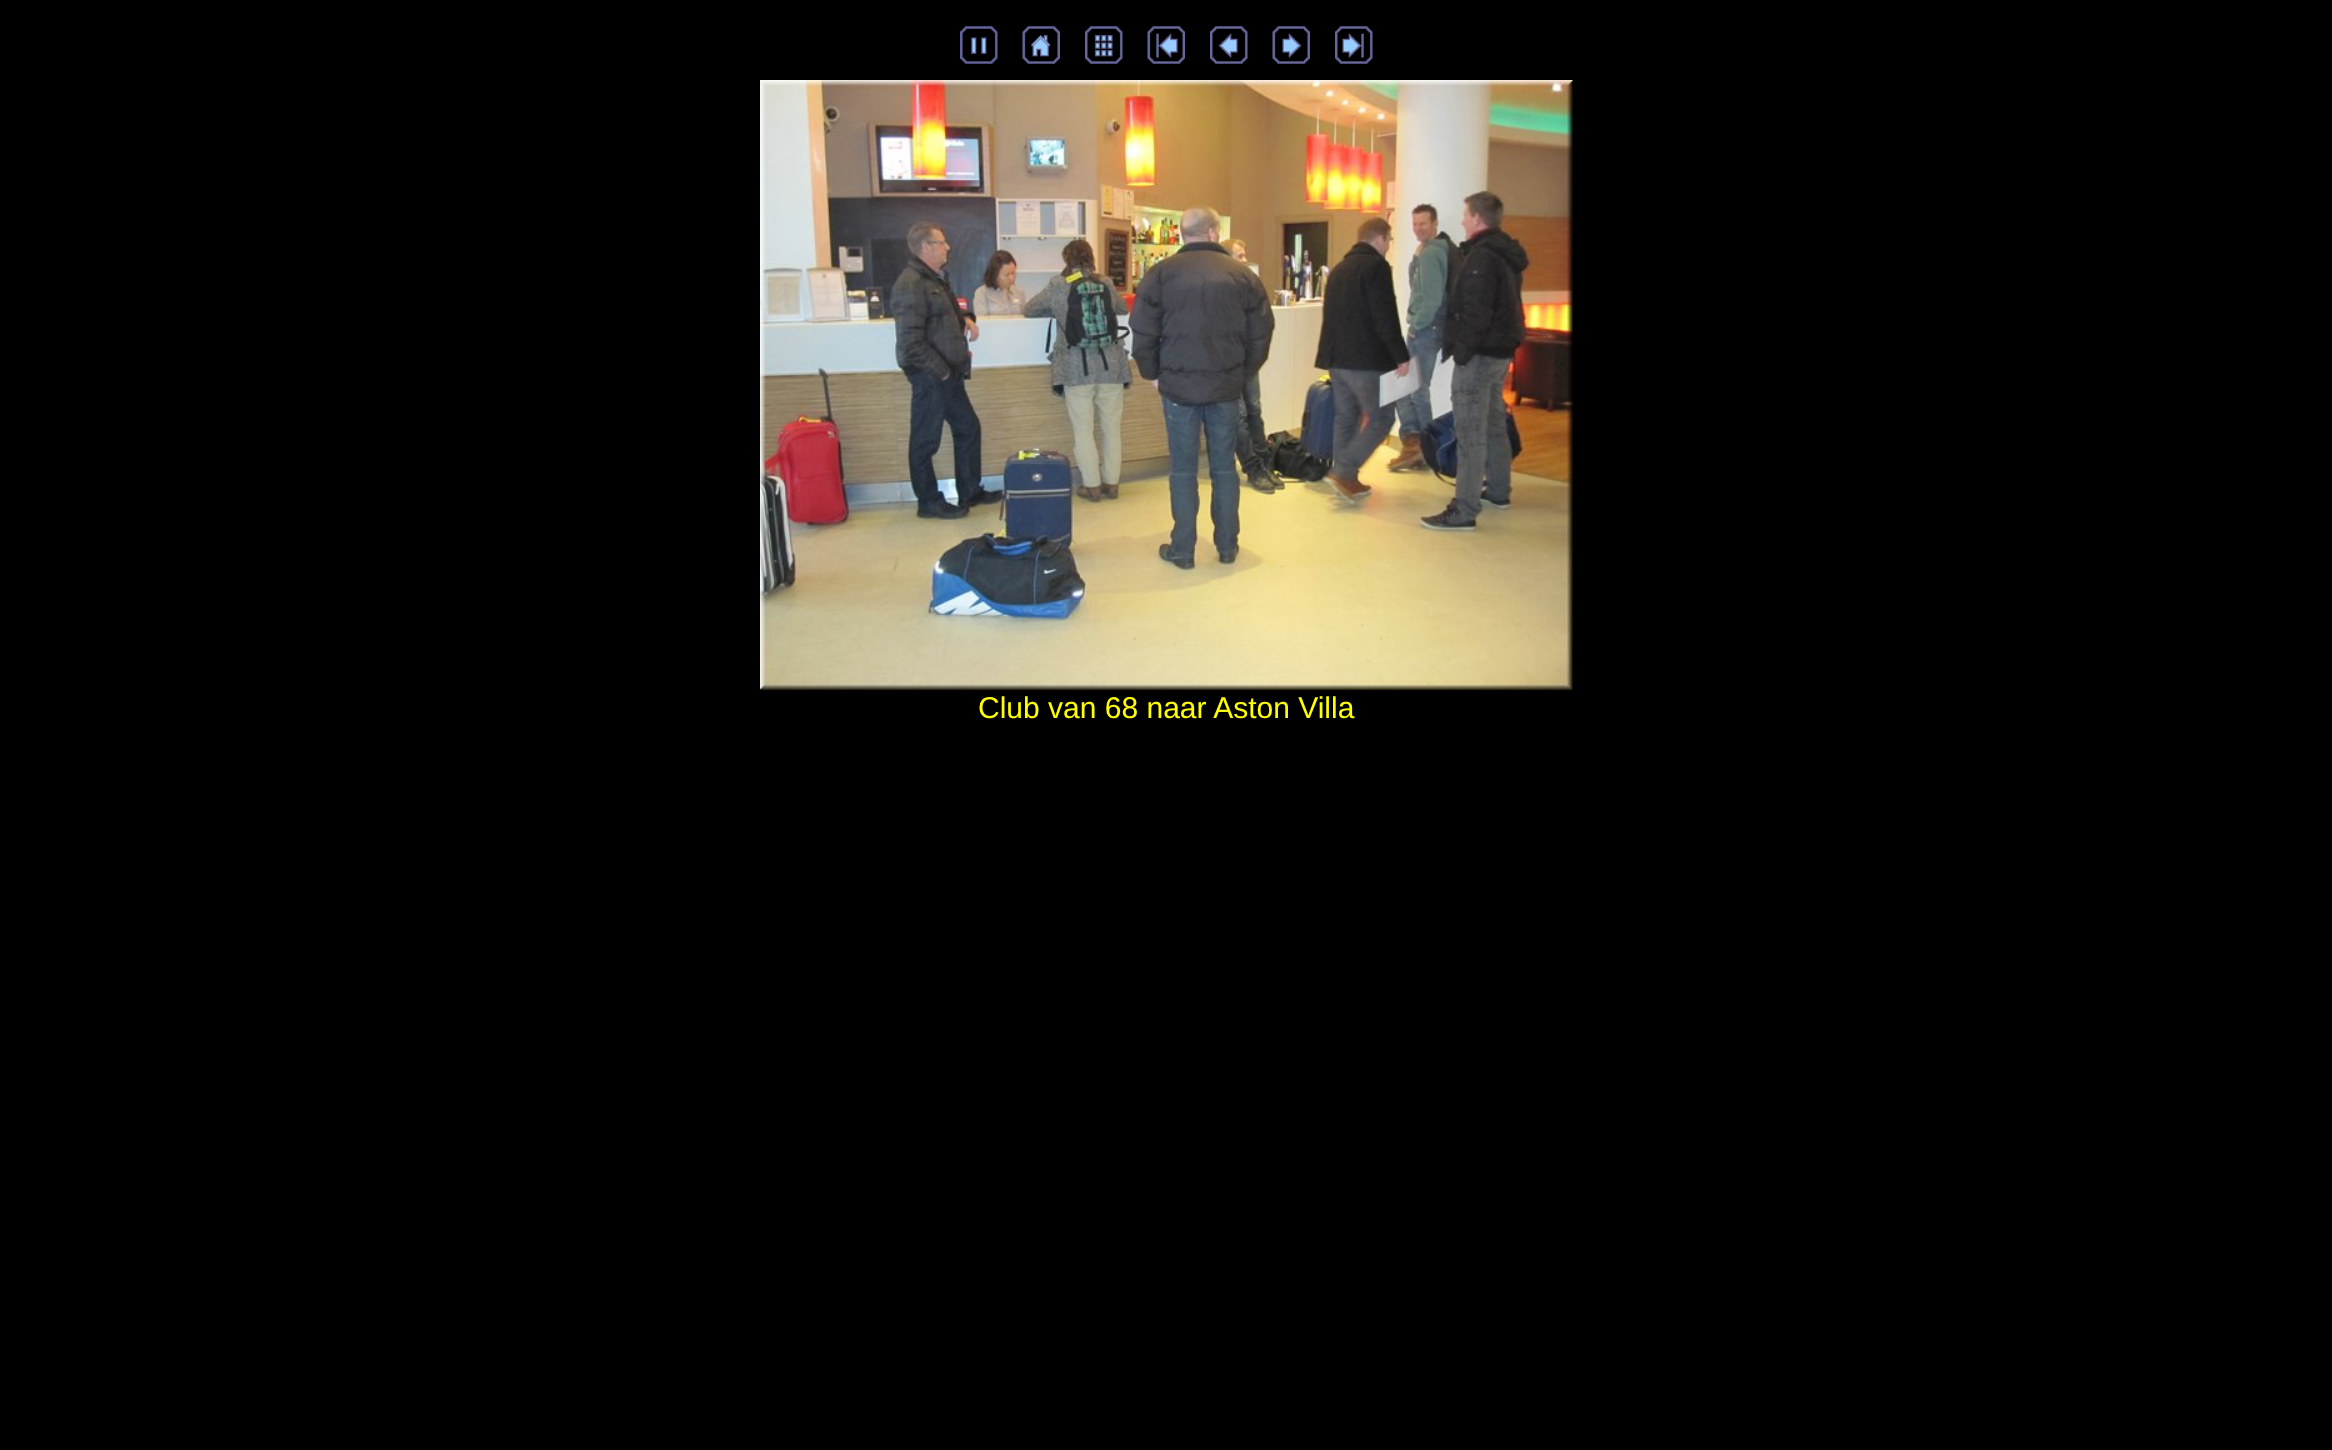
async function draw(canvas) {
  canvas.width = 2332;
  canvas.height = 1450;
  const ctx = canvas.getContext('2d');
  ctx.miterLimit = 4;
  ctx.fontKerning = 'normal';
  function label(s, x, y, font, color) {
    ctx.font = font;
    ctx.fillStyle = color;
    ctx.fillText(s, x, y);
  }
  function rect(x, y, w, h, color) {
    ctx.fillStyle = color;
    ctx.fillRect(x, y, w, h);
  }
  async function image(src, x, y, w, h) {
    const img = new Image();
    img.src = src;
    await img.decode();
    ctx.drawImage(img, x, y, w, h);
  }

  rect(0, 0, 2332, 1450, '#000');
  await image('assets/img1.png', 960, 26, 38, 38);
  await image('assets/img2.png', 1022, 26, 38, 38);
  await image('assets/img3.png', 1085, 26, 38, 38);
  await image('assets/img4.png', 1147, 26, 38, 38);
  await image('assets/img5.png', 1210, 26, 38, 38);
  await image('assets/img6.png', 1272, 26, 38, 38);
  await image('assets/img7.png', 1335, 26, 38, 38);
  await image('assets/img8.png', 760, 80, 813, 610);
  label('Club van 68 naar Aston Villa', 978, 718, '30px Liberation Sans', '#ff0');
}

draw(document.querySelector('canvas'));
